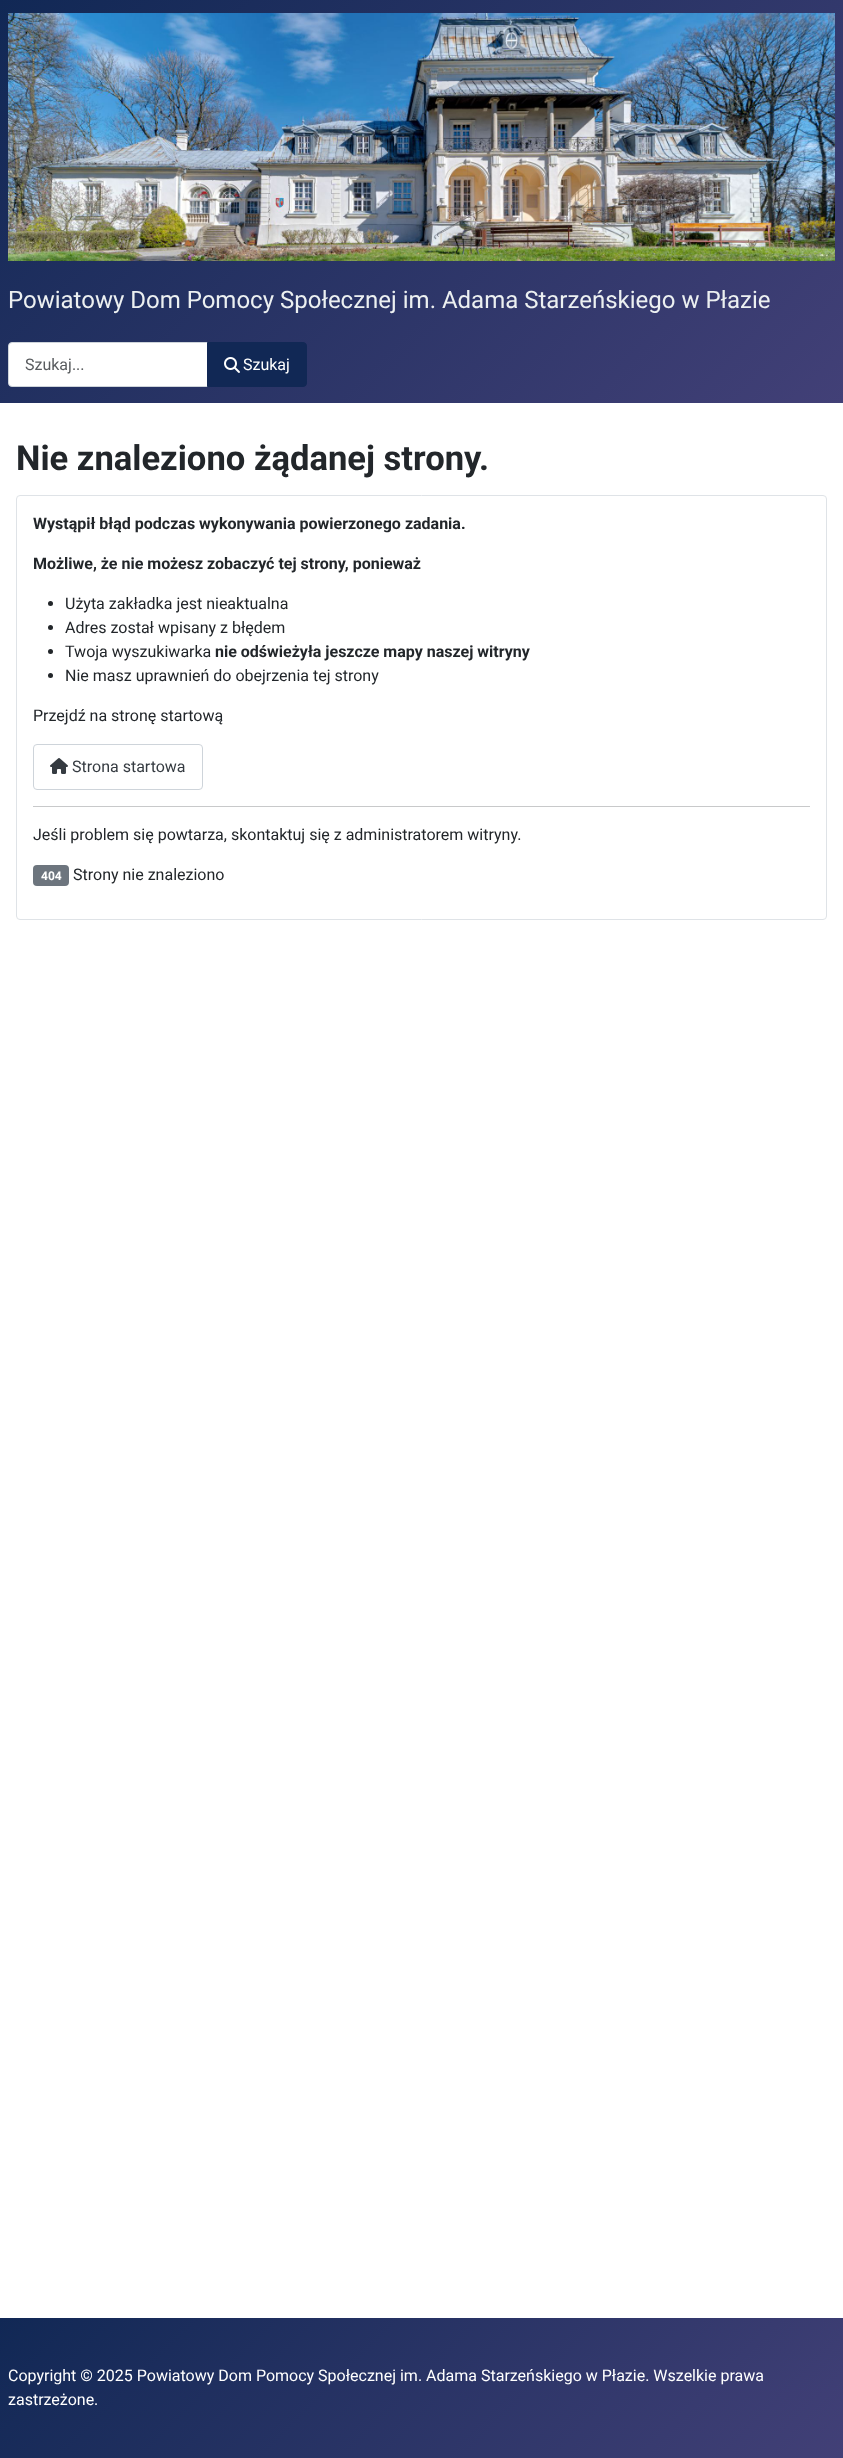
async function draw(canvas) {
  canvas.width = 843;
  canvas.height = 2458;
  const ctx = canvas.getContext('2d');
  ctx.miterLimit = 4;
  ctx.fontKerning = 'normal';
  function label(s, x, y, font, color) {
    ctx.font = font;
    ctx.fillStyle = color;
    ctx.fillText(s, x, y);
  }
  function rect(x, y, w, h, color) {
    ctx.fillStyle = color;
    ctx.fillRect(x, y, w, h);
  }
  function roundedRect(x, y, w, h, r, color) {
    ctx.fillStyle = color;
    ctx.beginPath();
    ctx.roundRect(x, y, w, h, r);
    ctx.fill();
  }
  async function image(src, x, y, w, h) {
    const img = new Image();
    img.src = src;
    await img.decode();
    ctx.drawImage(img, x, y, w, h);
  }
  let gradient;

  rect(0, 0, 843, 2458, '#fff');
  gradient = ctx.createLinearGradient(110, -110, 733, 513);
  gradient.addColorStop(0, '#112855');
  gradient.addColorStop(1, '#424077');
  ctx.fillStyle = gradient;
  ctx.fillRect(0, 0, 843, 403);
  await image('assets/img1.png', 8, 13, 827, 248);
  label('Powiatowy Dom Pomocy Społecznej im. Adama Starzeńskiego w Płazie', 8, 308, '24px Roboto', '#ecf0f1');
  ctx.fillStyle = '#fff';
  ctx.beginPath();
  ctx.roundRect(8.5, 342.5, 199, 44, [3.5, 0, 0, 3.5]);
  ctx.fill();
  ctx.strokeStyle = '#ced4da';
  ctx.stroke();
  label('Szukaj...', 25, 370, '16px Roboto', '#595c5f');
  ctx.fillStyle = '#112855';
  ctx.beginPath();
  ctx.roundRect(207.5, 342.5, 99, 44, [0, 3.5, 3.5, 0]);
  ctx.fill();
  ctx.strokeStyle = '#112855';
  ctx.stroke();
  await image('assets/img2.png', 224, 357, 16, 16);
  label('Szukaj', 243, 370, '16px Roboto', '#fff');
  label('Nie znaleziono żądanej strony.', 16, 470, 'bold 34.6px Roboto', '#22262a');
  ctx.beginPath();
  ctx.roundRect(16.5, 495.5, 810, 424, 3.5);
  ctx.strokeStyle = '#dfe3e7';
  ctx.stroke();
  label('Wystąpił błąd podczas wykonywania powierzonego zadania.', 33, 529, 'bold 16px Roboto', '#22262a');
  label('Możliwe, że nie możesz zobaczyć tej strony, ponieważ', 33, 569, 'bold 16px Roboto', '#22262a');
  ctx.beginPath();
  ctx.arc(50.5, 603.5, 2.5, 0, 2 * Math.PI);
  ctx.fill();
  label('Użyta zakładka jest nieaktualna', 65, 609, '16px Roboto', '#22262a');
  ctx.beginPath();
  ctx.arc(50.5, 627.5, 2.5, 0, 2 * Math.PI);
  ctx.fill();
  label('Adres został wpisany z błędem', 65, 633, '16px Roboto', '#22262a');
  ctx.beginPath();
  ctx.arc(50.5, 651.5, 2.5, 0, 2 * Math.PI);
  ctx.fill();
  label('Twoja wyszukiwarka', 65, 657, '16px Roboto', '#22262a');
  label('nie odświeżyła jeszcze mapy naszej witryny', 215, 657, 'bold 16px Roboto', '#22262a');
  ctx.beginPath();
  ctx.arc(50.5, 675.5, 2.5, 0, 2 * Math.PI);
  ctx.fill();
  label('Nie masz uprawnień do obejrzenia tej strony', 65, 681, '16px Roboto', '#22262a');
  label('Przejdź na stronę startową', 33, 721, '16px Roboto', '#22262a');
  ctx.beginPath();
  ctx.roundRect(33.5, 744.5, 169, 45, 3.5);
  ctx.strokeStyle = '#ced4da';
  ctx.stroke();
  await image('assets/img3.png', 50, 758, 18, 16);
  label('Strona startowa', 72, 772, '16px Roboto', '#353b41');
  rect(33, 806, 777, 1, '#c8c9ca');
  label('Jeśli problem się powtarza, skontaktuj się z administratorem witryny.', 33, 840, '16px Roboto', '#22262a');
  roundedRect(33, 865, 36, 21, 4, '#6d757e');
  label('404', 41, 880, 'bold 12px Roboto', '#fff');
  label('Strony nie znaleziono', 73, 880, '16px Roboto', '#22262a');
  gradient = ctx.createLinearGradient(176, 2142, 667, 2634);
  gradient.addColorStop(0, '#112855');
  gradient.addColorStop(1, '#424077');
  ctx.fillStyle = gradient;
  ctx.fillRect(0, 2318, 843, 140);
  label('Copyright © 2025 Powiatowy Dom Pomocy Społecznej im. Adama Starzeńskiego w Płazie. Wszelkie prawa', 8, 2381, '16px Roboto', '#fff');
  label('zastrzeżone.', 8, 2405, '16px Roboto', '#fff');
}

draw(document.querySelector('canvas'));
